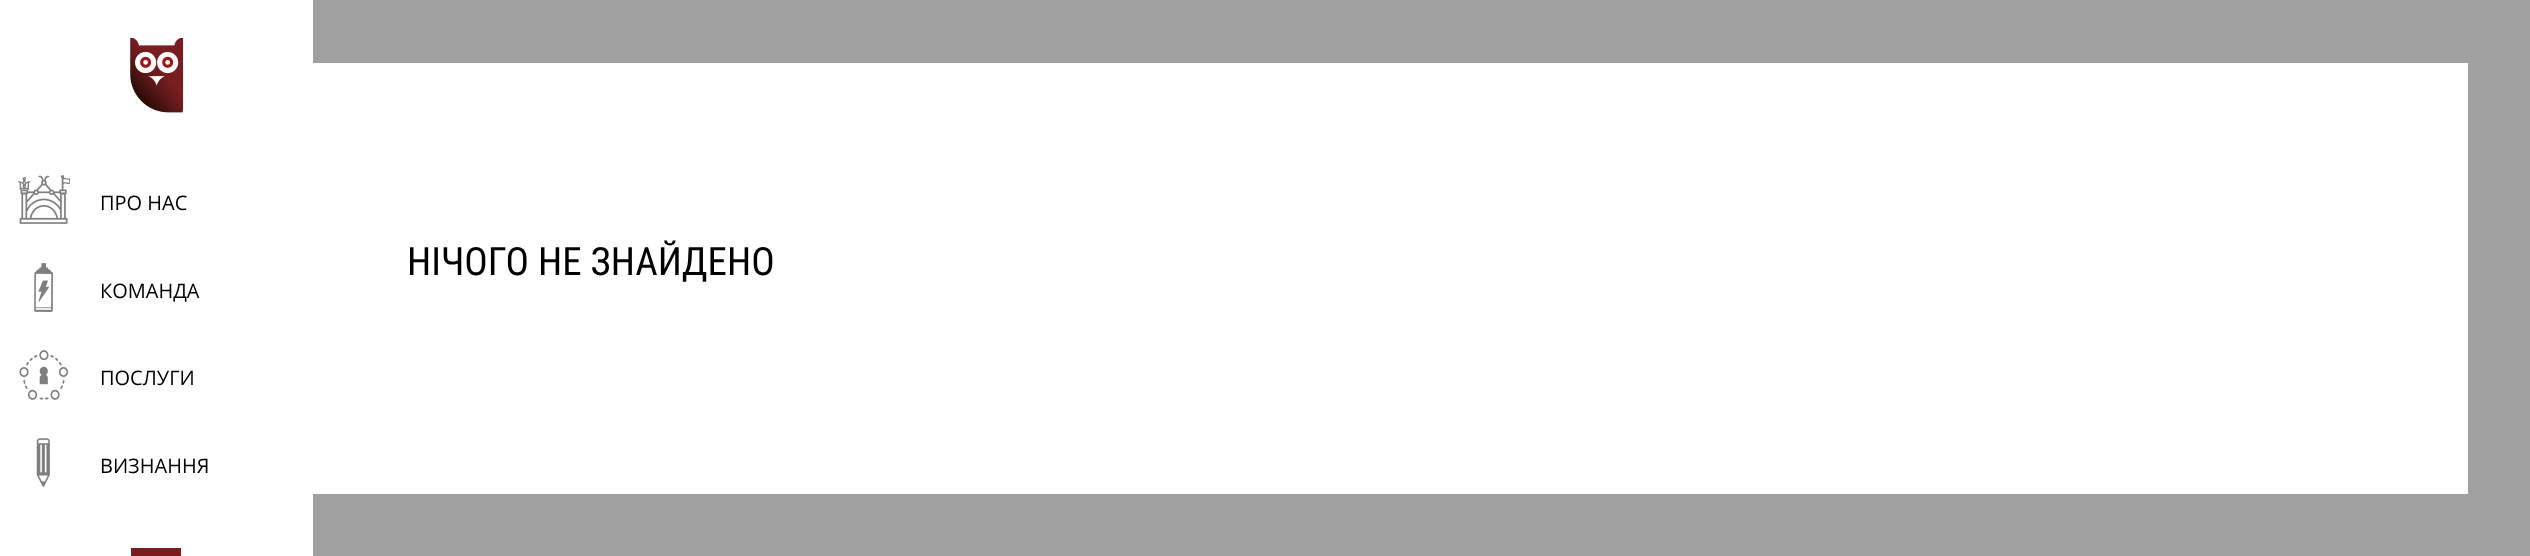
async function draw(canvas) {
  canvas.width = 2530;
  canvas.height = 556;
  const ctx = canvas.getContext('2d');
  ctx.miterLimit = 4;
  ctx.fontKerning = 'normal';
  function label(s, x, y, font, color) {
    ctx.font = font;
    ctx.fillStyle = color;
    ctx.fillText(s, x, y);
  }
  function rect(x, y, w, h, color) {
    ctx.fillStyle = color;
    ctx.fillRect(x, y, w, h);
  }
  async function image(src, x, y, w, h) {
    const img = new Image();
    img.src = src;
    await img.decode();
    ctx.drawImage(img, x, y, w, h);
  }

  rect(0, 0, 2530, 556, '#a0a0a0');
  rect(0, 0, 313, 556, '#fff');
  await image('assets/img1.png', 130, 38, 54, 75);
  await image('assets/img2.png', 18, 175, 52, 49);
  label('ПРО НАС', 100, 210, '20px Open Sans', '#000');
  await image('assets/img3.png', 34, 263, 19, 49);
  label('КОМАНДА', 100, 298, '20px Open Sans', '#000');
  await image('assets/img4.png', 19, 350, 50, 50);
  label('ПОСЛУГИ', 100, 385, '20px Open Sans', '#000');
  await image('assets/img5.png', 36, 438, 14, 49);
  label('ВИЗНАННЯ', 100, 473, '20px Open Sans', '#000');
  rect(131, 548, 50, 8, '#781e21');
  rect(313, 63, 2155, 431, '#fff');
  label('НIЧОГО НЕ ЗНАЙДЕНО', 407, 275, '39px Roboto Condensed', '#000');
}

draw(document.querySelector('canvas'));
